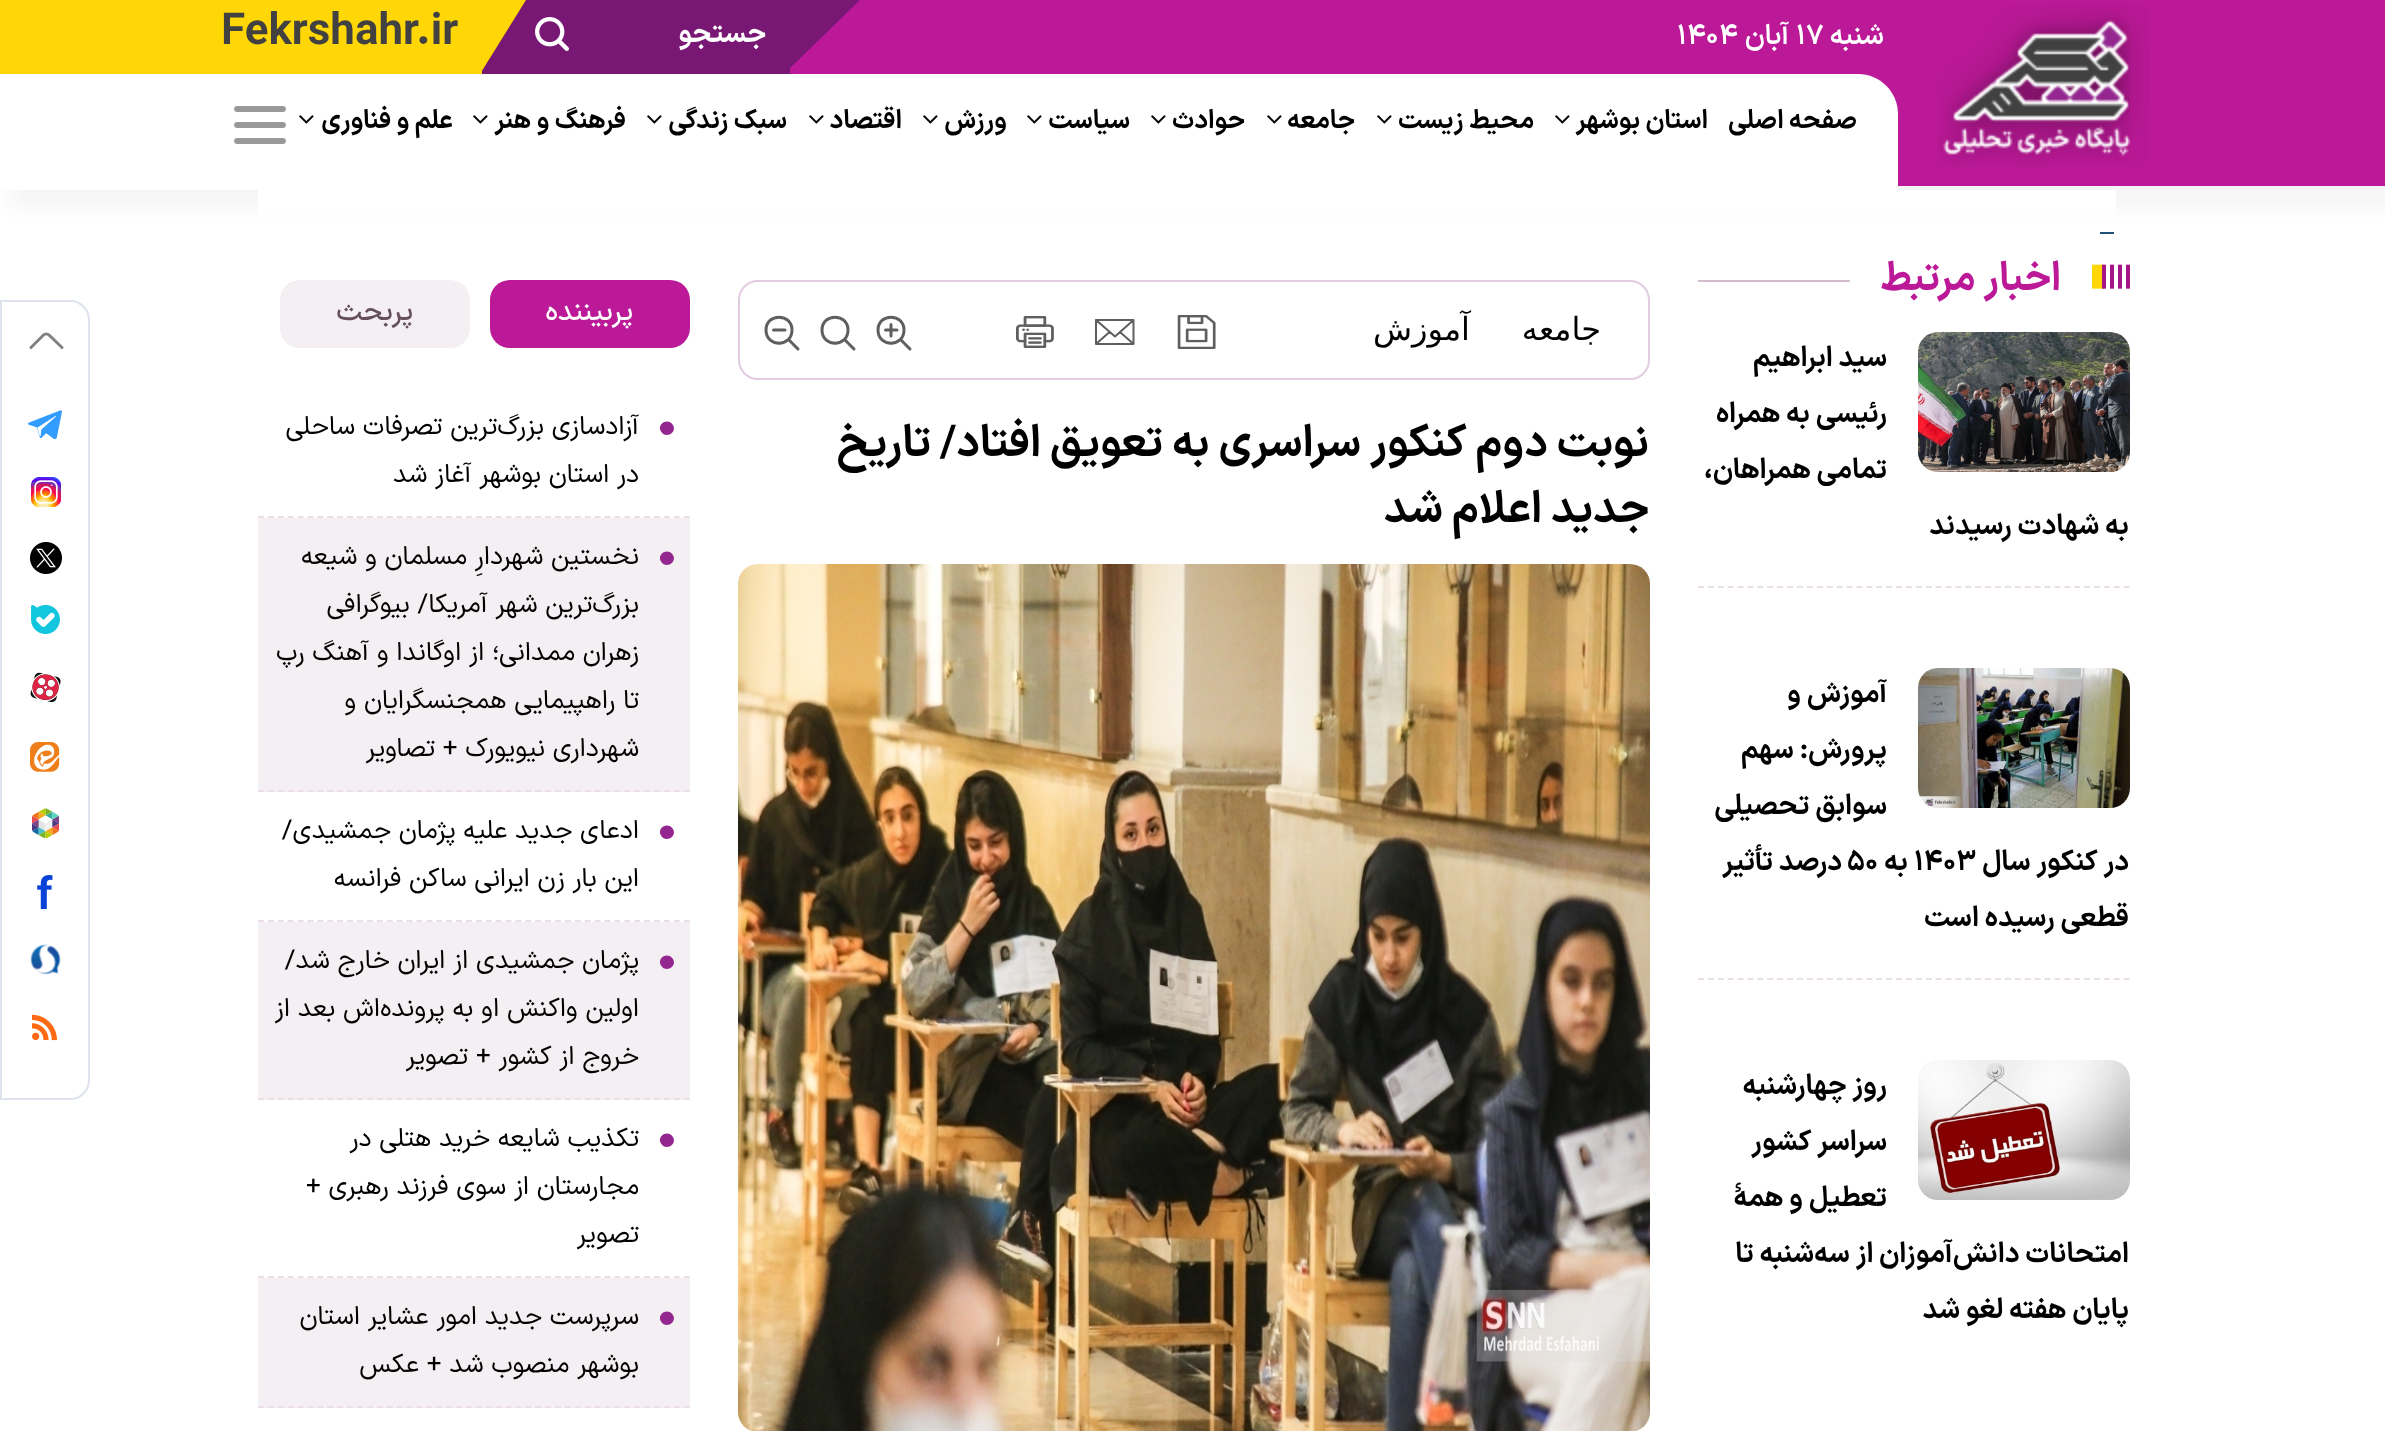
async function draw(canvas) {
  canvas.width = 2385;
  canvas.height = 1431;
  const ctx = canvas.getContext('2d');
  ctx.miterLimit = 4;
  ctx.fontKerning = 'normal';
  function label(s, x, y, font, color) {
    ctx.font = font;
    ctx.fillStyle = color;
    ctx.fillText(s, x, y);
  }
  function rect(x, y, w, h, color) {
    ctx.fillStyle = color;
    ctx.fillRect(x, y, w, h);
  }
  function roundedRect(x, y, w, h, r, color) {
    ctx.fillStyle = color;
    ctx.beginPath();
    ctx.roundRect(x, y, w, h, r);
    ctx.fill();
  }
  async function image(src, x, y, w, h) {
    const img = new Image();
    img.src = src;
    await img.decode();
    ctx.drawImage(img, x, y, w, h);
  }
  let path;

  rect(0, 0, 2385, 1431, '#fff');
  ctx.fillStyle = '#0000000a';
  ctx.filter = 'blur(10px)';
  ctx.beginPath();
  ctx.rect(10, 22, 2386, 186);
  ctx.fill();
  ctx.filter = 'none';
  rect(790, 0, 1595, 186, '#bb1997');
  await image('assets/img1.png', 1937, 3, 213, 164);
  ctx.direction = 'rtl';
  label('شنبه', 1884, 44, '600 28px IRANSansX', '#fff');
  ctx.direction = 'ltr';
  label('۱۷', 1796, 44, '600 28px IRANSansX', '#fff');
  ctx.direction = 'rtl';
  label('آبان', 1789, 44, '600 28px IRANSansX', '#fff');
  ctx.direction = 'ltr';
  label('۱۴۰۴', 1677, 44, '600 28px IRANSansX', '#fff');
  rect(482, 0, 308, 74, '#781774');
  path = new Path2D('M788 0H860L788 70Z');
  ctx.fill(path);
  ctx.direction = 'rtl';
  label('جستجو', 766, 42, 'bold 28px IRANSansX', '#fff');
  await image('assets/img2.png', 535, 17, 34, 34);
  rect(0, 0, 482, 74, '#ffd706');
  path = new Path2D('M480 0H526L480 74Z');
  ctx.fill(path);
  ctx.direction = 'ltr';
  label('Fekrshahr.ir', 221, 44, 'bold 44px IRANSansX', '#414141');
  ctx.fillStyle = '#fff';
  path = new Path2D('M-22 74H1858C1880 74 1898 92 1898 114V190H-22Z');
  ctx.fill(path);
  ctx.direction = 'rtl';
  label('صفحه اصلی', 1857, 128, 'bold 26px IRANSansX', '#000');
  label('استان بوشهر', 1708, 128, 'bold 26px IRANSansX', '#000');
  await image('assets/img3.png', 1555, 115, 15, 9);
  label('محیط زیست', 1534, 128, 'bold 26px IRANSansX', '#000');
  await image('assets/img3.png', 1377, 115, 15, 9);
  label('جامعه', 1355, 128, 'bold 26px IRANSansX', '#000');
  await image('assets/img3.png', 1267, 115, 15, 9);
  label('حوادث', 1245, 128, 'bold 26px IRANSansX', '#000');
  await image('assets/img3.png', 1151, 115, 15, 9);
  label('سیاست', 1130, 128, 'bold 26px IRANSansX', '#000');
  await image('assets/img3.png', 1027, 115, 15, 9);
  label('ورزش', 1007, 128, 'bold 26px IRANSansX', '#000');
  await image('assets/img3.png', 923, 115, 15, 9);
  label('اقتصاد', 902, 128, 'bold 26px IRANSansX', '#000');
  await image('assets/img3.png', 809, 115, 15, 9);
  label('سبک زندگی', 787, 128, 'bold 26px IRANSansX', '#000');
  await image('assets/img3.png', 647, 115, 15, 9);
  label('فرهنگ و هنر', 626, 128, 'bold 26px IRANSansX', '#000');
  await image('assets/img3.png', 473, 115, 15, 9);
  label('علم و فناوری', 453, 128, 'bold 26px IRANSansX', '#000');
  await image('assets/img3.png', 299, 115, 15, 9);
  await image('assets/img4.png', 234, 106, 52, 38);
  rect(258, 190, 1858, 25, '#fff');
  rect(2100, 232, 14, 2, '#1f527b');
  ctx.beginPath();
  ctx.roundRect(1, 301, 88, 798, [0, 19, 19, 0]);
  ctx.strokeStyle = '#dee3ef';
  ctx.lineWidth = 2;
  ctx.stroke();
  path = new Path2D('M31 347.5L43.5 335C45 333.5 47.5 333.5 49 335L62 347.5');
  ctx.strokeStyle = '#818181';
  ctx.lineWidth = 3;
  ctx.lineCap = 'round';
  ctx.lineJoin = 'round';
  ctx.stroke(path);
  await image('assets/img5.png', 28, 410, 34, 30);
  await image('assets/img6.png', 31, 477, 30, 30);
  await image('assets/img7.png', 30, 542, 32, 32);
  await image('assets/img8.png', 31, 605, 29, 29);
  await image('assets/img9.png', 30, 672, 31, 31);
  await image('assets/img10.png', 30, 742, 30, 30);
  await image('assets/img11.png', 32, 808, 27, 30);
  await image('assets/img12.png', 37, 875, 16, 34);
  await image('assets/img13.png', 30, 944, 31, 31);
  await image('assets/img14.png', 32, 1014, 25, 27);
  rect(1698, 280, 152, 2, '#d3bdcd');
  await image('assets/img15.png', 2092, 264, 38, 25);
  label('اخبار مرتبط', 2061, 290, 'bold 40px IRANSansX', '#bb1997');
  path = new Path2D('M1698 587H2130');
  ctx.strokeStyle = '#ebdee6';
  ctx.lineWidth = 2;
  ctx.lineCap = 'butt';
  ctx.lineJoin = 'miter';
  ctx.setLineDash([6, 3.9]);
  ctx.stroke(path);
  await image('assets/img16.png', 1918, 332, 212, 140);
  label('سید ابراهیم', 1887, 366, 'bold 28px IRANSansX', '#000');
  label('رئیسی به همراه', 1887, 422, 'bold 28px IRANSansX', '#000');
  label('تمامی همراهان،', 1887, 478, 'bold 28px IRANSansX', '#000');
  label('به شهادت رسیدند', 2129, 534, 'bold 28px IRANSansX', '#000');
  path = new Path2D('M1698 979H2130');
  ctx.stroke(path);
  await image('assets/img17.png', 1918, 668, 212, 140);
  label('آموزش و', 1887, 702, 'bold 28px IRANSansX', '#000');
  label('پرورش: سهم', 1887, 758, 'bold 28px IRANSansX', '#000');
  label('سوابق تحصیلی', 1887, 814, 'bold 28px IRANSansX', '#000');
  label('در کنکور سال', 2129, 870, 'bold 28px IRANSansX', '#000');
  ctx.direction = 'ltr';
  label('۱۴۰۳', 1914, 870, 'bold 28px IRANSansX', '#000');
  ctx.direction = 'rtl';
  label('به', 1908, 870, 'bold 28px IRANSansX', '#000');
  ctx.direction = 'ltr';
  label('۵۰', 1847, 870, 'bold 28px IRANSansX', '#000');
  ctx.direction = 'rtl';
  label('درصد تأثیر', 1842, 870, 'bold 28px IRANSansX', '#000');
  label('قطعی رسیده است', 2129, 926, 'bold 28px IRANSansX', '#000');
  await image('assets/img18.png', 1918, 1060, 212, 140);
  label('روز چهارشنبه', 1887, 1094, 'bold 28px IRANSansX', '#000');
  label('سراسر کشور', 1887, 1150, 'bold 28px IRANSansX', '#000');
  label('تعطیل و همۀ', 1887, 1206, 'bold 28px IRANSansX', '#000');
  label('امتحانات دانش‌آموزان از سه‌شنبه تا', 2129, 1262, 'bold 28px IRANSansX', '#000');
  label('پایان هفته لغو شد', 2129, 1318, 'bold 28px IRANSansX', '#000');
  ctx.beginPath();
  ctx.roundRect(739, 281, 910, 98, 19);
  ctx.strokeStyle = '#e2cce1';
  ctx.setLineDash([]);
  ctx.stroke();
  label('جامعه', 1601, 340, '32px DejaVu Sans', '#000');
  label('آموزش', 1470, 340, '32px DejaVu Sans', '#000');
  await image('assets/img19.png', 1177, 315, 39, 34);
  path = new Path2D('M1133.5 320H1096V344H1133.5ZM1096 320L1115 336.5L1133.5 320M1096 344L1109.5 332M1133.5 344L1120 332');
  ctx.strokeStyle = '#5f5f5f';
  ctx.lineCap = 'round';
  ctx.lineJoin = 'round';
  ctx.stroke(path);
  await image('assets/img20.png', 1016, 316, 38, 32);
  path = new Path2D('M910 349L900.5 339.5M891 324.5V336M885.5 330H897M904 330C904 347.5 878 347.5 878 330C878 313 904 313 904 330Z');
  ctx.lineWidth = 3;
  ctx.stroke(path);
  path = new Path2D('M854 349L844.5 339.5M848 330C848 347.5 822 347.5 822 330C822 313 848 313 848 330Z');
  ctx.stroke(path);
  path = new Path2D('M798 349L788.5 339.5M773.5 330H785M792 330C792 347.5 766 347.5 766 330C766 313 792 313 792 330Z');
  ctx.stroke(path);
  label('نوبت دوم کنکور سراسری به تعویق افتاد/ تاریخ', 1649, 456, 'bold 44px IRANSansX', '#000');
  label('جدید اعلام شد', 1649, 522, 'bold 44px IRANSansX', '#000');
  await image('assets/img21.png', 738, 564, 912, 867);
  roundedRect(490, 280, 200, 68, 20, '#bb1997');
  label('پربیننده', 633, 320, '500 28px IRANSansX', '#fff');
  roundedRect(280, 280, 190, 68, 20, '#f4eff2');
  label('پربحث', 413, 320, '500 28px IRANSansX', '#664f5d');
  path = new Path2D('M258 517H690');
  ctx.strokeStyle = '#ebdee6';
  ctx.lineWidth = 2;
  ctx.lineCap = 'butt';
  ctx.lineJoin = 'miter';
  ctx.setLineDash([6, 3.9]);
  ctx.stroke(path);
  ctx.fillStyle = '#93278f';
  path = new Path2D('M673 425C677.5 432.5 665.5 439.5 661 431.5C656.5 424 668 417 673 425Z');
  ctx.fill(path);
  label('آزادسازی بزرگ‌ترین تصرفات ساحلی', 639, 434, '26px IRANSansX', '#000');
  label('در استان بوشهر آغاز شد', 639, 482, '26px IRANSansX', '#000');
  rect(258, 518, 432, 274, '#f4eff2');
  path = new Path2D('M258 791H690');
  ctx.stroke(path);
  ctx.fillStyle = '#93278f';
  path = new Path2D('M673 555C677.5 562.5 665.5 569.5 661 561.5C656.5 554 668 547 673 555Z');
  ctx.fill(path);
  label('نخستین شهردارِ مسلمان و شیعه', 639, 564, '26px IRANSansX', '#000');
  label('بزرگ‌ترین شهر آمریکا/ بیوگرافی', 639, 612, '26px IRANSansX', '#000');
  label('زهران ممدانی؛ از اوگاندا و آهنگ رپ', 639, 660, '26px IRANSansX', '#000');
  label('تا راهپیمایی همجنسگرایان و', 639, 708, '26px IRANSansX', '#000');
  label('شهرداری نیویورک + تصاویر', 639, 756, '26px IRANSansX', '#000');
  path = new Path2D('M258 921H690');
  ctx.stroke(path);
  ctx.fillStyle = '#93278f';
  path = new Path2D('M673 829C677.5 836.5 665.5 843.5 661 835.5C656.5 828 668 821 673 829Z');
  ctx.fill(path);
  label('ادعای جدید علیه پژمان جمشیدی/', 639, 838, '26px IRANSansX', '#000');
  label('این بار زن ایرانی ساکن فرانسه', 639, 886, '26px IRANSansX', '#000');
  rect(258, 922, 432, 178, '#f4eff2');
  path = new Path2D('M258 1099H690');
  ctx.stroke(path);
  ctx.fillStyle = '#93278f';
  path = new Path2D('M673 959C677.5 966.5 665.5 973.5 661 965.5C656.5 958 668 951 673 959Z');
  ctx.fill(path);
  label('پژمان جمشیدی از ایران خارج شد/', 639, 968, '26px IRANSansX', '#000');
  label('اولین واکنش او به پرونده‌اش بعد از', 639, 1016, '26px IRANSansX', '#000');
  label('خروج از کشور + تصویر', 639, 1064, '26px IRANSansX', '#000');
  path = new Path2D('M258 1277H690');
  ctx.stroke(path);
  ctx.fillStyle = '#93278f';
  path = new Path2D('M673 1137C677.5 1144.5 665.5 1151.5 661 1143.5C656.5 1136 668 1129 673 1137Z');
  ctx.fill(path);
  label('تکذیب شایعه خرید هتلی در', 639, 1146, '26px IRANSansX', '#000');
  label('مجارستان از سوی فرزند رهبری +', 639, 1194, '26px IRANSansX', '#000');
  label('تصویر', 639, 1242, '26px IRANSansX', '#000');
  rect(258, 1278, 432, 130, '#f4eff2');
  path = new Path2D('M258 1407H690');
  ctx.stroke(path);
  ctx.fillStyle = '#93278f';
  path = new Path2D('M673 1315C677.5 1322.5 665.5 1329.5 661 1321.5C656.5 1314 668 1307 673 1315Z');
  ctx.fill(path);
  label('سرپرست جدید امور عشایر استان', 639, 1324, '26px IRANSansX', '#000');
  label('بوشهر منصوب شد + عکس', 639, 1372, '26px IRANSansX', '#000');
}

draw(document.querySelector('canvas'));
